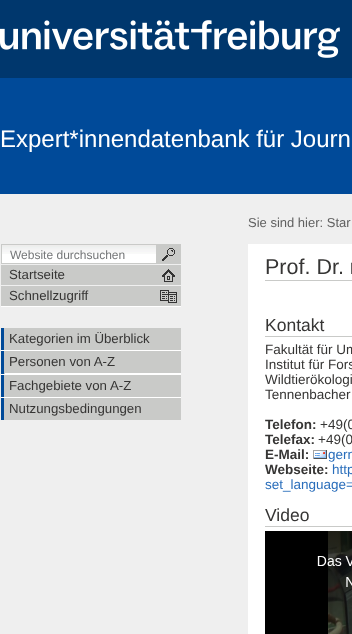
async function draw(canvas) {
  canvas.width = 352;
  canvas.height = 634;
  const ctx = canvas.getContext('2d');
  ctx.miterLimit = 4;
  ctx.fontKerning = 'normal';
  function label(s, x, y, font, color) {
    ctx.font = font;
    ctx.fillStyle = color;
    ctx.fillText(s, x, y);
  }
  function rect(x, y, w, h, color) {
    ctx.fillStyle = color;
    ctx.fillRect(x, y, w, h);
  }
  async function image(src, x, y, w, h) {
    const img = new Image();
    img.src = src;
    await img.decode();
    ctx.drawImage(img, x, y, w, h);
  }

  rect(0, 0, 352, 634, '#efefef');
  rect(0, 0, 352, 78, '#00376d');
  await image('assets/img1.png', 0, 20, 340, 38);
  rect(0, 78, 352, 116, '#004a99');
  label('Expert*innendatenbank für Journ', 0, 147, '24px Liberation Sans', '#fff');
  label('Sie sind hier: Star', 248, 227, '13px Liberation Sans', '#606060');
  rect(2, 254, 154, 9, '#fff');
  await image('assets/img2.png', 2, 245, 154, 9);
  ctx.strokeStyle = '#c9cac8';
  ctx.strokeRect(1.5, 244.5, 155, 19);
  label('Website durchsuchen', 10, 259, '12px Liberation Sans', '#747678');
  rect(157, 244, 24, 20, '#c9cac8');
  await image('assets/img3.png', 162, 248, 13, 13);
  rect(1, 265, 180, 20, '#c9cac8');
  await image('assets/img4.png', 162, 269, 13, 13);
  label('Startseite', 9, 279, '13.25px Liberation Sans', '#363534');
  rect(1, 286, 180, 20, '#c9cac8');
  await image('assets/img5.png', 160, 290, 17, 13);
  rect(1, 306, 180, 1, '#fff');
  label('Schnellzugriff', 9, 300, '13.25px Liberation Sans', '#363534');
  rect(4, 328, 177, 22, '#c9cac8');
  rect(1, 328, 3, 92, '#004a99');
  rect(1, 350, 180, 1, '#fff');
  label('Kategorien im Überblick', 9, 343, '13.25px Liberation Sans', '#363534');
  rect(4, 351, 177, 23, '#c9cac8');
  rect(1, 374, 180, 1, '#fff');
  label('Personen von A-Z', 9, 366, '13.25px Liberation Sans', '#363534');
  rect(5, 373, 176, 1, '#fff');
  rect(4, 375, 177, 22, '#c9cac8');
  rect(1, 397, 180, 1, '#fff');
  label('Fachgebiete von A-Z', 9, 390, '13.25px Liberation Sans', '#363534');
  rect(4, 398, 177, 22, '#c9cac8');
  label('Nutzungsbedingungen', 9, 413, '13.25px Liberation Sans', '#363534');
  rect(248, 244, 104, 390, '#fff');
  rect(265, 280, 87, 1, '#c9cac8');
  label('Prof. Dr. r', 265, 274, '21.5px Liberation Sans', '#363534');
  rect(265, 336, 87, 1, '#c9cac8');
  label('Kontakt', 265, 331, '17.5px Liberation Sans', '#363534');
  label('Fakultät für Um', 265, 354, '13.5px Liberation Sans', '#363534');
  label('Institut für Fors', 265, 369, '13.5px Liberation Sans', '#363534');
  label('Wildtierökologi', 265, 384, '13.5px Liberation Sans', '#363534');
  label('Tennenbacher', 265, 399, '13.5px Liberation Sans', '#363534');
  label('Telefon:', 265, 429, 'bold 13.5px Liberation Sans', '#363534');
  label('+49(0', 320, 429, '13.5px Liberation Sans', '#363534');
  label('Telefax:', 265, 444, 'bold 13.5px Liberation Sans', '#363534');
  label('+49(0', 318, 444, '13.5px Liberation Sans', '#363534');
  label('E-Mail:', 265, 459, 'bold 13.5px Liberation Sans', '#363534');
  await image('assets/img6.png', 313, 450, 14, 9);
  label('gern', 328, 459, '13.5px Liberation Sans', '#2a6ebb');
  label('Webseite:', 265, 474, 'bold 13.5px Liberation Sans', '#363534');
  label('http', 332, 474, '13.5px Liberation Sans', '#2a6ebb');
  label('set_language=', 265, 489, '13.5px Liberation Sans', '#2a6ebb');
  rect(265, 526, 87, 1, '#c9cac8');
  label('Video', 265, 521, '17.5px Liberation Sans', '#363534');
  await image('assets/img7.png', 265, 531, 87, 103);
}

draw(document.querySelector('canvas'));
